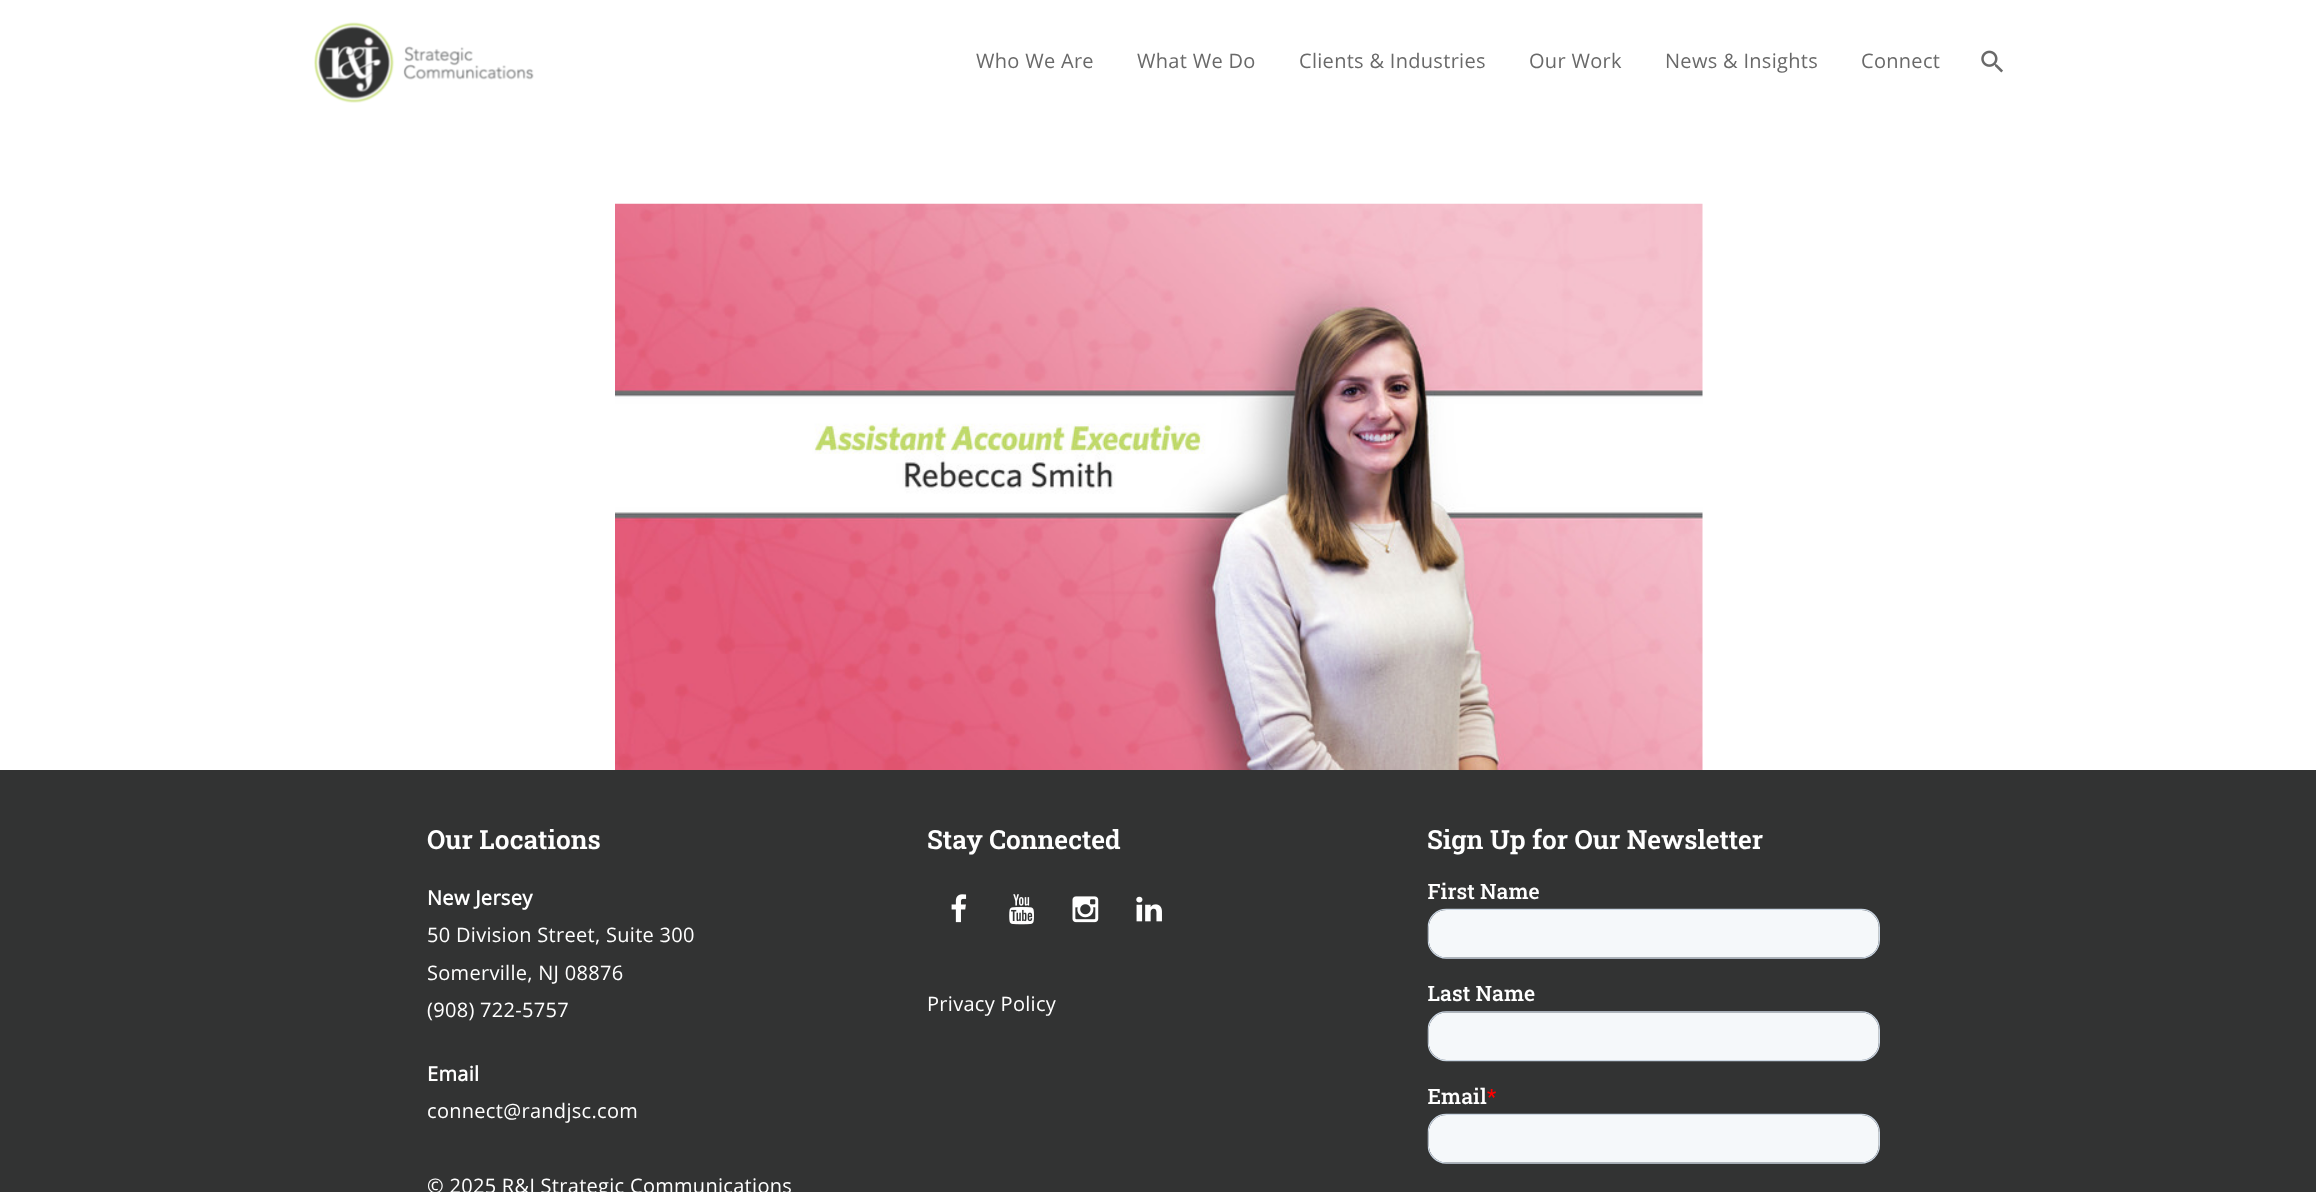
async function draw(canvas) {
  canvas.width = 2316;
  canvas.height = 1192;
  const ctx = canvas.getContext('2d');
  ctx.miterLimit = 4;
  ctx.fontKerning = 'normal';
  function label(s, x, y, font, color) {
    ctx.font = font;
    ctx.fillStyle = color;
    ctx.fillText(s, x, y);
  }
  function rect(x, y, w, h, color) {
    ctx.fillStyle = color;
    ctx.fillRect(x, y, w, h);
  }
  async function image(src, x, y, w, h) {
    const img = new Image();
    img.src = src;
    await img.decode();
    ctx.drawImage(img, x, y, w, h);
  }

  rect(0, 0, 2316, 1192, '#fff');
  await image('assets/img1.png', 314, 22, 220, 81);
  ctx.letterSpacing = '0.3px';
  label('Who We Are', 976, 68, '20px Open Sans', '#696969');
  label('What We Do', 1137, 68, '20px Open Sans', '#696969');
  label('Clients & Industries', 1299, 68, '20px Open Sans', '#696969');
  label('Our Work', 1529, 68, '20px Open Sans', '#696969');
  label('News & Insights', 1665, 68, '20px Open Sans', '#696969');
  label('Connect', 1861, 68, '20px Open Sans', '#696969');
  await image('assets/img2.png', 1981, 50, 22, 23);
  await image('assets/img3.png', 615, 203, 1088, 567);
  rect(0, 770, 2316, 422, '#323333');
  ctx.letterSpacing = '0px';
  label('Our Locations', 427, 849, '600 26.25px Roboto Slab', '#fff');
  ctx.letterSpacing = '0.3px';
  label('New Jersey', 427, 905, 'bold 20px Open Sans', '#fff');
  label('50 Division Street, Suite 300', 427, 942, '20px Open Sans', '#fff');
  label('Somerville, NJ 08876', 427, 980, '20px Open Sans', '#fff');
  label('(908) 722-5757', 427, 1017, '20px Open Sans', '#fff');
  label('Email', 427, 1081, 'bold 20px Open Sans', '#fff');
  label('connect@randjsc.com', 427, 1118, '20px Open Sans', '#fff');
  label('© 2025 R&J Strategic Communications', 427, 1193, '20px Open Sans', '#fff');
  ctx.letterSpacing = '0px';
  label('Stay Connected', 927, 849, '600 26.25px Roboto Slab', '#fff');
  await image('assets/img4.png', 951, 894, 16, 29);
  await image('assets/img5.png', 1009, 894, 25, 31);
  await image('assets/img6.png', 1072, 896, 27, 27);
  await image('assets/img7.png', 1136, 896, 26, 26);
  ctx.letterSpacing = '0.3px';
  label('Privacy Policy', 927, 1011, '20px Open Sans', '#fff');
  ctx.letterSpacing = '0px';
  label('Sign Up for Our Newsletter', 1427, 849, '600 26.25px Roboto Slab', '#fff');
  await image('assets/img8.png', 1427, 882, 453, 282);
}

draw(document.querySelector('canvas'));
